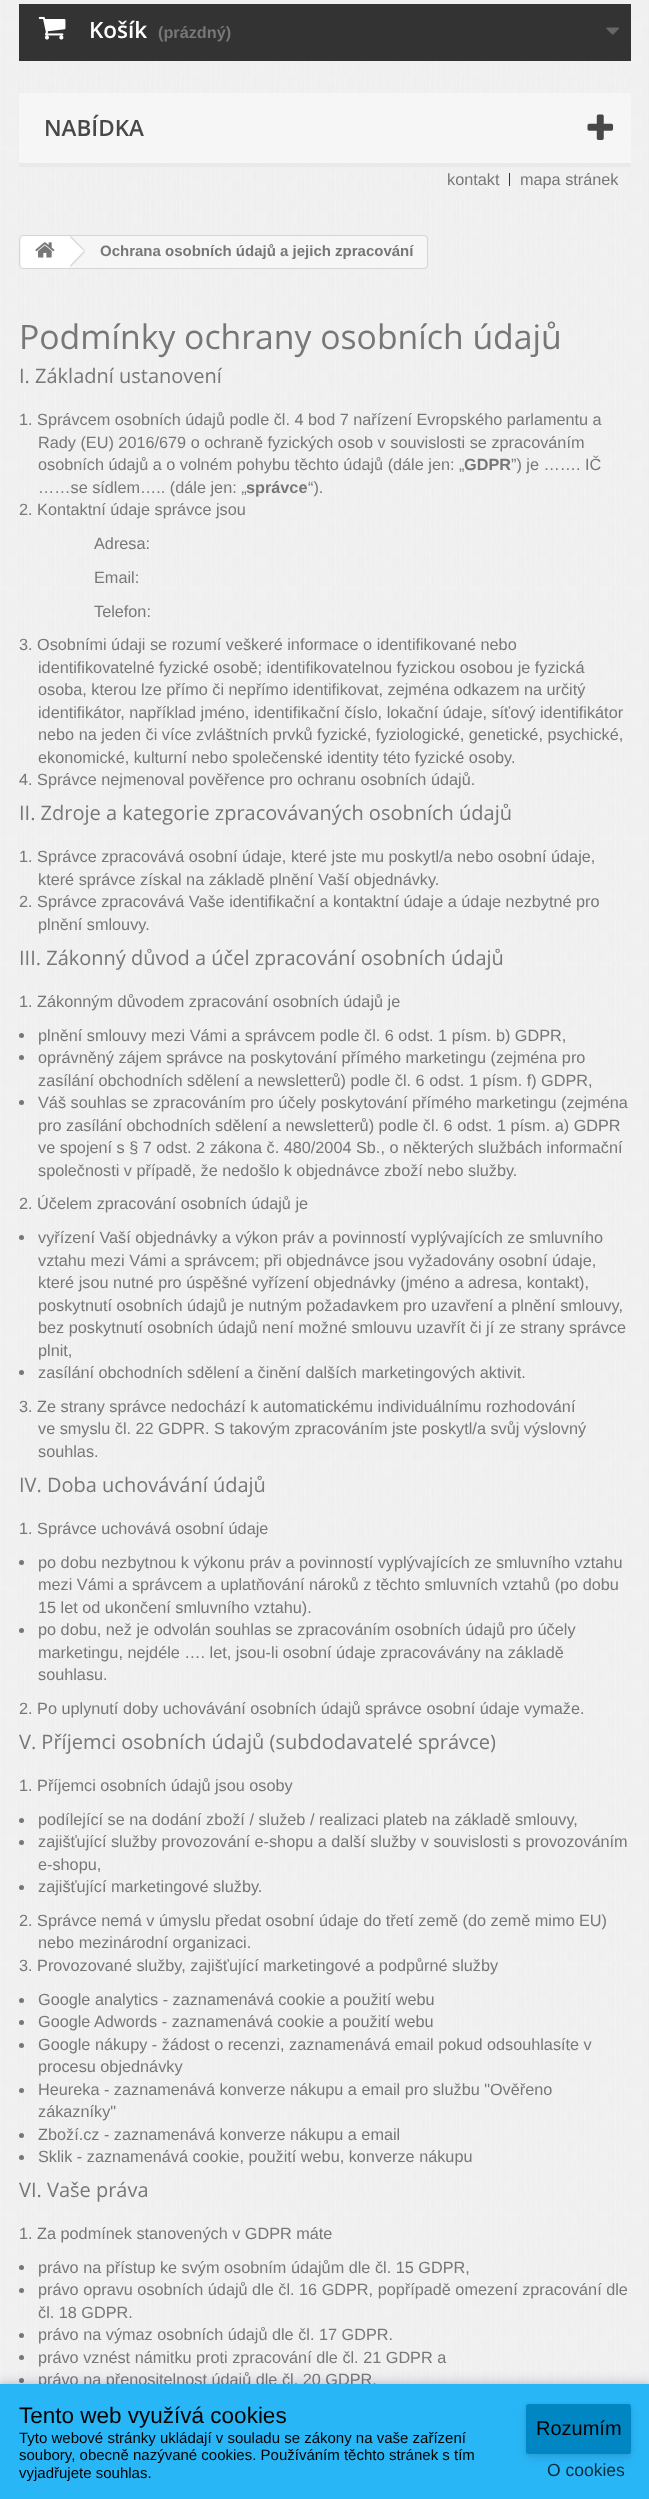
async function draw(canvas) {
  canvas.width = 649;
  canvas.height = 2499;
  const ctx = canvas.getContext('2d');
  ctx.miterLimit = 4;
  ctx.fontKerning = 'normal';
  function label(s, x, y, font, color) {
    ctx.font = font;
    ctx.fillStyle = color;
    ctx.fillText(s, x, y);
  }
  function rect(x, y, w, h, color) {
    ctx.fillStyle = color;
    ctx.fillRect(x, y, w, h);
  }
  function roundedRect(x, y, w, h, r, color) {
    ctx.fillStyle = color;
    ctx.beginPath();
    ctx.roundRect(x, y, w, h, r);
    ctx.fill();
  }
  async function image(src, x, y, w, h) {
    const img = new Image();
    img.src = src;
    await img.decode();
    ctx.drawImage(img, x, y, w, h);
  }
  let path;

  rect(0, 0, 649, 2499, '#fff');
  await image('assets/img1.png', 0, 0, 649, 216);
  rect(19, 4, 612, 57, '#333');
  await image('assets/img2.png', 38, 16, 28, 24);
  label('Košík', 89, 38, '600 22.5px Open Sans', '#fff');
  label('(prázdný)', 158, 38, 'bold 16.25px Liberation Sans', '#777');
  await image('assets/img3.png', 606, 27, 13, 8);
  rect(19, 93, 612, 70, '#f6f6f6');
  rect(19, 163, 612, 4, '#e9e9e9');
  label('NABÍDKA', 44, 136, '600 22.5px Open Sans', '#484848');
  await image('assets/img4.png', 587, 114, 27, 26);
  label('kontakt', 447, 185, '16.25px Liberation Sans', '#777');
  rect(509, 173, 1, 13, '#333');
  label('mapa stránek', 520, 185, '16.25px Liberation Sans', '#777');
  await image('assets/img5.png', 0, 216, 649, 2168);
  ctx.fillStyle = '#f6f6f6';
  ctx.beginPath();
  ctx.roundRect(19.5, 235.5, 408, 33, 3.5);
  ctx.fill();
  ctx.strokeStyle = '#d6d4d4';
  ctx.stroke();
  ctx.fillStyle = '#fff';
  ctx.beginPath();
  ctx.roundRect(21, 236, 48, 32, [4, 0, 0, 4]);
  ctx.fill();
  await image('assets/img6.png', 35, 242, 20, 16);
  path = new Path2D('M72 237L84 249.5C85 250.5 85 252 84 253L72 265.5C71 266.5 69 266.5 68 265.5L56 253C55 252 55 250.5 56 249.5L68 237C69 236 71 236 72 237Z');
  ctx.fill(path);
  ctx.fillStyle = '#d6d4d4';
  path = new Path2D('M71 236L85 250.5L84 251L70 237ZM84 251L85 252L71 266.5L70 265.5Z');
  ctx.fill(path);
  label('Ochrana osobních údajů a jejich zpracování', 100, 256, 'bold 15px Liberation Sans', '#777');
  label('Podmínky ochrany osobních údajů', 19, 349, '33.75px Open Sans', '#777');
  label('I. Základní ustanovení', 19, 383, '20px Open Sans', '#777');
  label('1. Správcem osobních údajů podle čl. 4 bod 7 nařízení Evropského parlamentu a', 19, 425, '16.25px Liberation Sans', '#777');
  label('Rady (EU) 2016/679 o ochraně fyzických osob v souvislosti se zpracováním', 38, 448, '16.25px Liberation Sans', '#777');
  label('osobních údajů a o volném pohybu těchto údajů (dále jen: „', 38, 470, '16.25px Liberation Sans', '#777');
  label('GDPR', 464, 470, 'bold 16.25px Liberation Sans', '#777');
  label('”) je ……. IČ', 511, 470, '16.25px Liberation Sans', '#777');
  label('……se sídlem….. (dále jen: „', 38, 493, '16.25px Liberation Sans', '#777');
  label('správce', 246, 493, 'bold 16.25px Liberation Sans', '#777');
  label('“).', 308, 493, '16.25px Liberation Sans', '#777');
  label('2. Kontaktní údaje správce jsou', 19, 515, '16.25px Liberation Sans', '#777');
  label('Adresa:', 94, 549, '16.25px Liberation Sans', '#777');
  label('Email:', 94, 583, '16.25px Liberation Sans', '#777');
  label('Telefon:', 94, 617, '16.25px Liberation Sans', '#777');
  label('3. Osobními údaji se rozumí veškeré informace o identifikované nebo', 19, 650, '16.25px Liberation Sans', '#777');
  label('identifikovatelné fyzické osobě; identifikovatelnou fyzickou osobou je fyzická', 38, 673, '16.25px Liberation Sans', '#777');
  label('osoba, kterou lze přímo či nepřímo identifikovat, zejména odkazem na určitý', 38, 695, '16.25px Liberation Sans', '#777');
  label('identifikátor, například jméno, identifikační číslo, lokační údaje, síťový identifikátor', 38, 718, '16.25px Liberation Sans', '#777');
  label('nebo na jeden či více zvláštních prvků fyzické, fyziologické, genetické, psychické,', 38, 740, '16.25px Liberation Sans', '#777');
  label('ekonomické, kulturní nebo společenské identity této fyzické osoby.', 38, 763, '16.25px Liberation Sans', '#777');
  label('4. Správce nejmenoval pověřence pro ochranu osobních údajů.', 19, 785, '16.25px Liberation Sans', '#777');
  label('II. Zdroje a kategorie zpracovávaných osobních údajů', 19, 820, '20px Open Sans', '#777');
  label('1. Správce zpracovává osobní údaje, které jste mu poskytl/a nebo osobní údaje,', 19, 862, '16.25px Liberation Sans', '#777');
  label('které správce získal na základě plnění Vaší objednávky.', 38, 885, '16.25px Liberation Sans', '#777');
  label('2. Správce zpracovává Vaše identifikační a kontaktní údaje a údaje nezbytné pro', 19, 907, '16.25px Liberation Sans', '#777');
  label('plnění smlouvy.', 38, 930, '16.25px Liberation Sans', '#777');
  label('III. Zákonný důvod a účel zpracování osobních údajů', 19, 965, '20px Open Sans', '#777');
  label('1. Zákonným důvodem zpracování osobních údajů je', 19, 1007, '16.25px Liberation Sans', '#777');
  ctx.beginPath();
  ctx.arc(21.5, 1035.5, 2.5, 0, 2 * Math.PI);
  ctx.fill();
  label('plnění smlouvy mezi Vámi a správcem podle čl. 6 odst. 1 písm. b) GDPR,', 38, 1041, '16.25px Liberation Sans', '#777');
  ctx.beginPath();
  ctx.arc(21.5, 1057.5, 2.5, 0, 2 * Math.PI);
  ctx.fill();
  label('oprávněný zájem správce na poskytování přímého marketingu (zejména pro', 38, 1063, '16.25px Liberation Sans', '#777');
  label('zasílání obchodních sdělení a newsletterů) podle čl. 6 odst. 1 písm. f) GDPR,', 38, 1086, '16.25px Liberation Sans', '#777');
  ctx.beginPath();
  ctx.arc(21.5, 1102.5, 2.5, 0, 2 * Math.PI);
  ctx.fill();
  label('Váš souhlas se zpracováním pro účely poskytování přímého marketingu (zejména', 38, 1108, '16.25px Liberation Sans', '#777');
  label('pro zasílání obchodních sdělení a newsletterů) podle čl. 6 odst. 1 písm. a) GDPR', 38, 1131, '16.25px Liberation Sans', '#777');
  label('ve spojení s § 7 odst. 2 zákona č. 480/2004 Sb., o některých službách informační', 38, 1153, '16.25px Liberation Sans', '#777');
  label('společnosti v případě, že nedošlo k objednávce zboží nebo služby.', 38, 1176, '16.25px Liberation Sans', '#777');
  label('2. Účelem zpracování osobních údajů je', 19, 1209, '16.25px Liberation Sans', '#777');
  ctx.beginPath();
  ctx.arc(21.5, 1237.5, 2.5, 0, 2 * Math.PI);
  ctx.fill();
  label('vyřízení Vaší objednávky a výkon práv a povinností vyplývajících ze smluvního', 38, 1243, '16.25px Liberation Sans', '#777');
  label('vztahu mezi Vámi a správcem; při objednávce jsou vyžadovány osobní údaje,', 38, 1266, '16.25px Liberation Sans', '#777');
  label('které jsou nutné pro úspěšné vyřízení objednávky (jméno a adresa, kontakt),', 38, 1288, '16.25px Liberation Sans', '#777');
  label('poskytnutí osobních údajů je nutným požadavkem pro uzavření a plnění smlouvy,', 38, 1311, '16.25px Liberation Sans', '#777');
  label('bez poskytnutí osobních údajů není možné smlouvu uzavřít či jí ze strany správce', 38, 1333, '16.25px Liberation Sans', '#777');
  label('plnit,', 38, 1356, '16.25px Liberation Sans', '#777');
  ctx.beginPath();
  ctx.arc(21.5, 1372.5, 2.5, 0, 2 * Math.PI);
  ctx.fill();
  label('zasílání obchodních sdělení a činění dalších marketingových aktivit.', 38, 1378, '16.25px Liberation Sans', '#777');
  label('3. Ze strany správce nedochází k automatickému individuálnímu rozhodování', 19, 1412, '16.25px Liberation Sans', '#777');
  label('ve smyslu čl. 22 GDPR. S takovým zpracováním jste poskytl/a svůj výslovný', 38, 1434, '16.25px Liberation Sans', '#777');
  label('souhlas.', 38, 1457, '16.25px Liberation Sans', '#777');
  label('IV. Doba uchovávání údajů', 19, 1492, '20px Open Sans', '#777');
  label('1. Správce uchovává osobní údaje', 19, 1534, '16.25px Liberation Sans', '#777');
  ctx.beginPath();
  ctx.arc(21.5, 1562.5, 2.5, 0, 2 * Math.PI);
  ctx.fill();
  label('po dobu nezbytnou k výkonu práv a povinností vyplývajících ze smluvního vztahu', 38, 1568, '16.25px Liberation Sans', '#777');
  label('mezi Vámi a správcem a uplatňování nároků z těchto smluvních vztahů (po dobu', 38, 1590, '16.25px Liberation Sans', '#777');
  label('15 let od ukončení smluvního vztahu).', 38, 1613, '16.25px Liberation Sans', '#777');
  ctx.beginPath();
  ctx.arc(21.5, 1630.5, 2.5, 0, 2 * Math.PI);
  ctx.fill();
  label('po dobu, než je odvolán souhlas se zpracováním osobních údajů pro účely', 38, 1635, '16.25px Liberation Sans', '#777');
  label('marketingu, nejdéle …. let, jsou-li osobní údaje zpracovávány na základě', 38, 1658, '16.25px Liberation Sans', '#777');
  label('souhlasu.', 38, 1680, '16.25px Liberation Sans', '#777');
  label('2. Po uplynutí doby uchovávání osobních údajů správce osobní údaje vymaže.', 19, 1714, '16.25px Liberation Sans', '#777');
  label('V. Příjemci osobních údajů (subdodavatelé správce)', 19, 1749, '20px Open Sans', '#777');
  label('1. Příjemci osobních údajů jsou osoby', 19, 1791, '16.25px Liberation Sans', '#777');
  ctx.beginPath();
  ctx.arc(21.5, 1820.5, 2.5, 0, 2 * Math.PI);
  ctx.fill();
  label('podílející se na dodání zboží / služeb / realizaci plateb na základě smlouvy,', 38, 1825, '16.25px Liberation Sans', '#777');
  ctx.beginPath();
  ctx.arc(21.5, 1842.5, 2.5, 0, 2 * Math.PI);
  ctx.fill();
  label('zajišťující služby provozování e-shopu a další služby v souvislosti s provozováním', 38, 1847, '16.25px Liberation Sans', '#777');
  label('e-shopu,', 38, 1870, '16.25px Liberation Sans', '#777');
  ctx.beginPath();
  ctx.arc(21.5, 1887.5, 2.5, 0, 2 * Math.PI);
  ctx.fill();
  label('zajišťující marketingové služby.', 38, 1892, '16.25px Liberation Sans', '#777');
  label('2. Správce nemá v úmyslu předat osobní údaje do třetí země (do země mimo EU)', 19, 1926, '16.25px Liberation Sans', '#777');
  label('nebo mezinárodní organizaci.', 38, 1948, '16.25px Liberation Sans', '#777');
  label('3. Provozované služby, zajišťující marketingové a podpůrné služby', 19, 1971, '16.25px Liberation Sans', '#777');
  ctx.beginPath();
  ctx.arc(21.5, 2000.5, 2.5, 0, 2 * Math.PI);
  ctx.fill();
  label('Google analytics - zaznamenává cookie a použití webu', 38, 2005, '16.25px Liberation Sans', '#777');
  ctx.beginPath();
  ctx.arc(21.5, 2022.5, 2.5, 0, 2 * Math.PI);
  ctx.fill();
  label('Google Adwords - zaznamenává cookie a použití webu', 38, 2027, '16.25px Liberation Sans', '#777');
  ctx.beginPath();
  ctx.arc(21.5, 2045.5, 2.5, 0, 2 * Math.PI);
  ctx.fill();
  label('Google nákupy - žádost o recenzi, zaznamenává email pokud odsouhlasíte v', 38, 2050, '16.25px Liberation Sans', '#777');
  label('procesu objednávky', 38, 2072, '16.25px Liberation Sans', '#777');
  ctx.beginPath();
  ctx.arc(21.5, 2090.5, 2.5, 0, 2 * Math.PI);
  ctx.fill();
  label('Heureka - zaznamenává konverze nákupu a email pro službu "Ověřeno', 38, 2095, '16.25px Liberation Sans', '#777');
  label('zákazníky"', 38, 2117, '16.25px Liberation Sans', '#777');
  ctx.beginPath();
  ctx.arc(21.5, 2135.5, 2.5, 0, 2 * Math.PI);
  ctx.fill();
  label('Zboží.cz - zaznamenává konverze nákupu a email', 38, 2140, '16.25px Liberation Sans', '#777');
  ctx.beginPath();
  ctx.arc(21.5, 2157.5, 2.5, 0, 2 * Math.PI);
  ctx.fill();
  label('Sklik - zaznamenává cookie, použití webu, konverze nákupu', 38, 2162, '16.25px Liberation Sans', '#777');
  label('VI. Vaše práva', 19, 2197, '20px Open Sans', '#777');
  label('1. Za podmínek stanovených v GDPR máte', 19, 2239, '16.25px Liberation Sans', '#777');
  ctx.beginPath();
  ctx.arc(21.5, 2267.5, 2.5, 0, 2 * Math.PI);
  ctx.fill();
  label('právo na přístup ke svým osobním údajům dle čl. 15 GDPR,', 38, 2273, '16.25px Liberation Sans', '#777');
  ctx.beginPath();
  ctx.arc(21.5, 2290.5, 2.5, 0, 2 * Math.PI);
  ctx.fill();
  label('právo opravu osobních údajů dle čl. 16 GDPR, popřípadě omezení zpracování dle', 38, 2295, '16.25px Liberation Sans', '#777');
  label('čl. 18 GDPR.', 38, 2318, '16.25px Liberation Sans', '#777');
  ctx.beginPath();
  ctx.arc(21.5, 2335.5, 2.5, 0, 2 * Math.PI);
  ctx.fill();
  label('právo na výmaz osobních údajů dle čl. 17 GDPR.', 38, 2340, '16.25px Liberation Sans', '#777');
  ctx.beginPath();
  ctx.arc(21.5, 2357.5, 2.5, 0, 2 * Math.PI);
  ctx.fill();
  label('právo vznést námitku proti zpracování dle čl. 21 GDPR a', 38, 2363, '16.25px Liberation Sans', '#777');
  ctx.beginPath();
  ctx.arc(21.5, 2380.5, 2.5, 0, 2 * Math.PI);
  ctx.fill();
  label('právo na přenositelnost údajů dle čl. 20 GDPR.', 38, 2385, '16.25px Liberation Sans', '#777');
  ctx.fillStyle = '#00000014';
  ctx.filter = 'blur(2px)';
  ctx.beginPath();
  ctx.rect(0, 2383, 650, 116);
  ctx.fill();
  ctx.filter = 'none';
  ctx.fillStyle = '#32325d1c';
  ctx.filter = 'blur(4px)';
  ctx.beginPath();
  ctx.rect(0, 2379, 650, 116);
  ctx.fill();
  ctx.filter = 'none';
  rect(0, 2384, 649, 115, '#29b6f6');
  label('Tento web využívá cookies', 19, 2423, '22.5px Liberation Sans', '#000');
  label('Tyto webové stránky ukládají v souladu se zákony na vaše zařízení', 19, 2443, '15px Liberation Sans', '#000');
  label('soubory, obecně nazývané cookies. Používáním těchto stránek s tím', 19, 2460, '15px Liberation Sans', '#000');
  label('vyjadřujete souhlas.', 19, 2478, '15px Liberation Sans', '#000');
  ctx.fillStyle = '#00000014';
  ctx.filter = 'blur(2px)';
  ctx.beginPath();
  ctx.roundRect(526, 2405, 105, 50, 2.5);
  ctx.fill();
  ctx.filter = 'none';
  ctx.fillStyle = '#32325d1c';
  ctx.filter = 'blur(4px)';
  ctx.beginPath();
  ctx.roundRect(526, 2409, 105, 50, 2.5);
  ctx.fill();
  ctx.filter = 'none';
  roundedRect(526, 2404, 105, 50, 2.5, '#0086c3');
  label('Rozumím', 536, 2435, '20px Liberation Sans', '#000');
  label('O cookies', 547, 2476, '17.5px Liberation Sans', '#0a2d3d');
}

draw(document.querySelector('canvas'));
